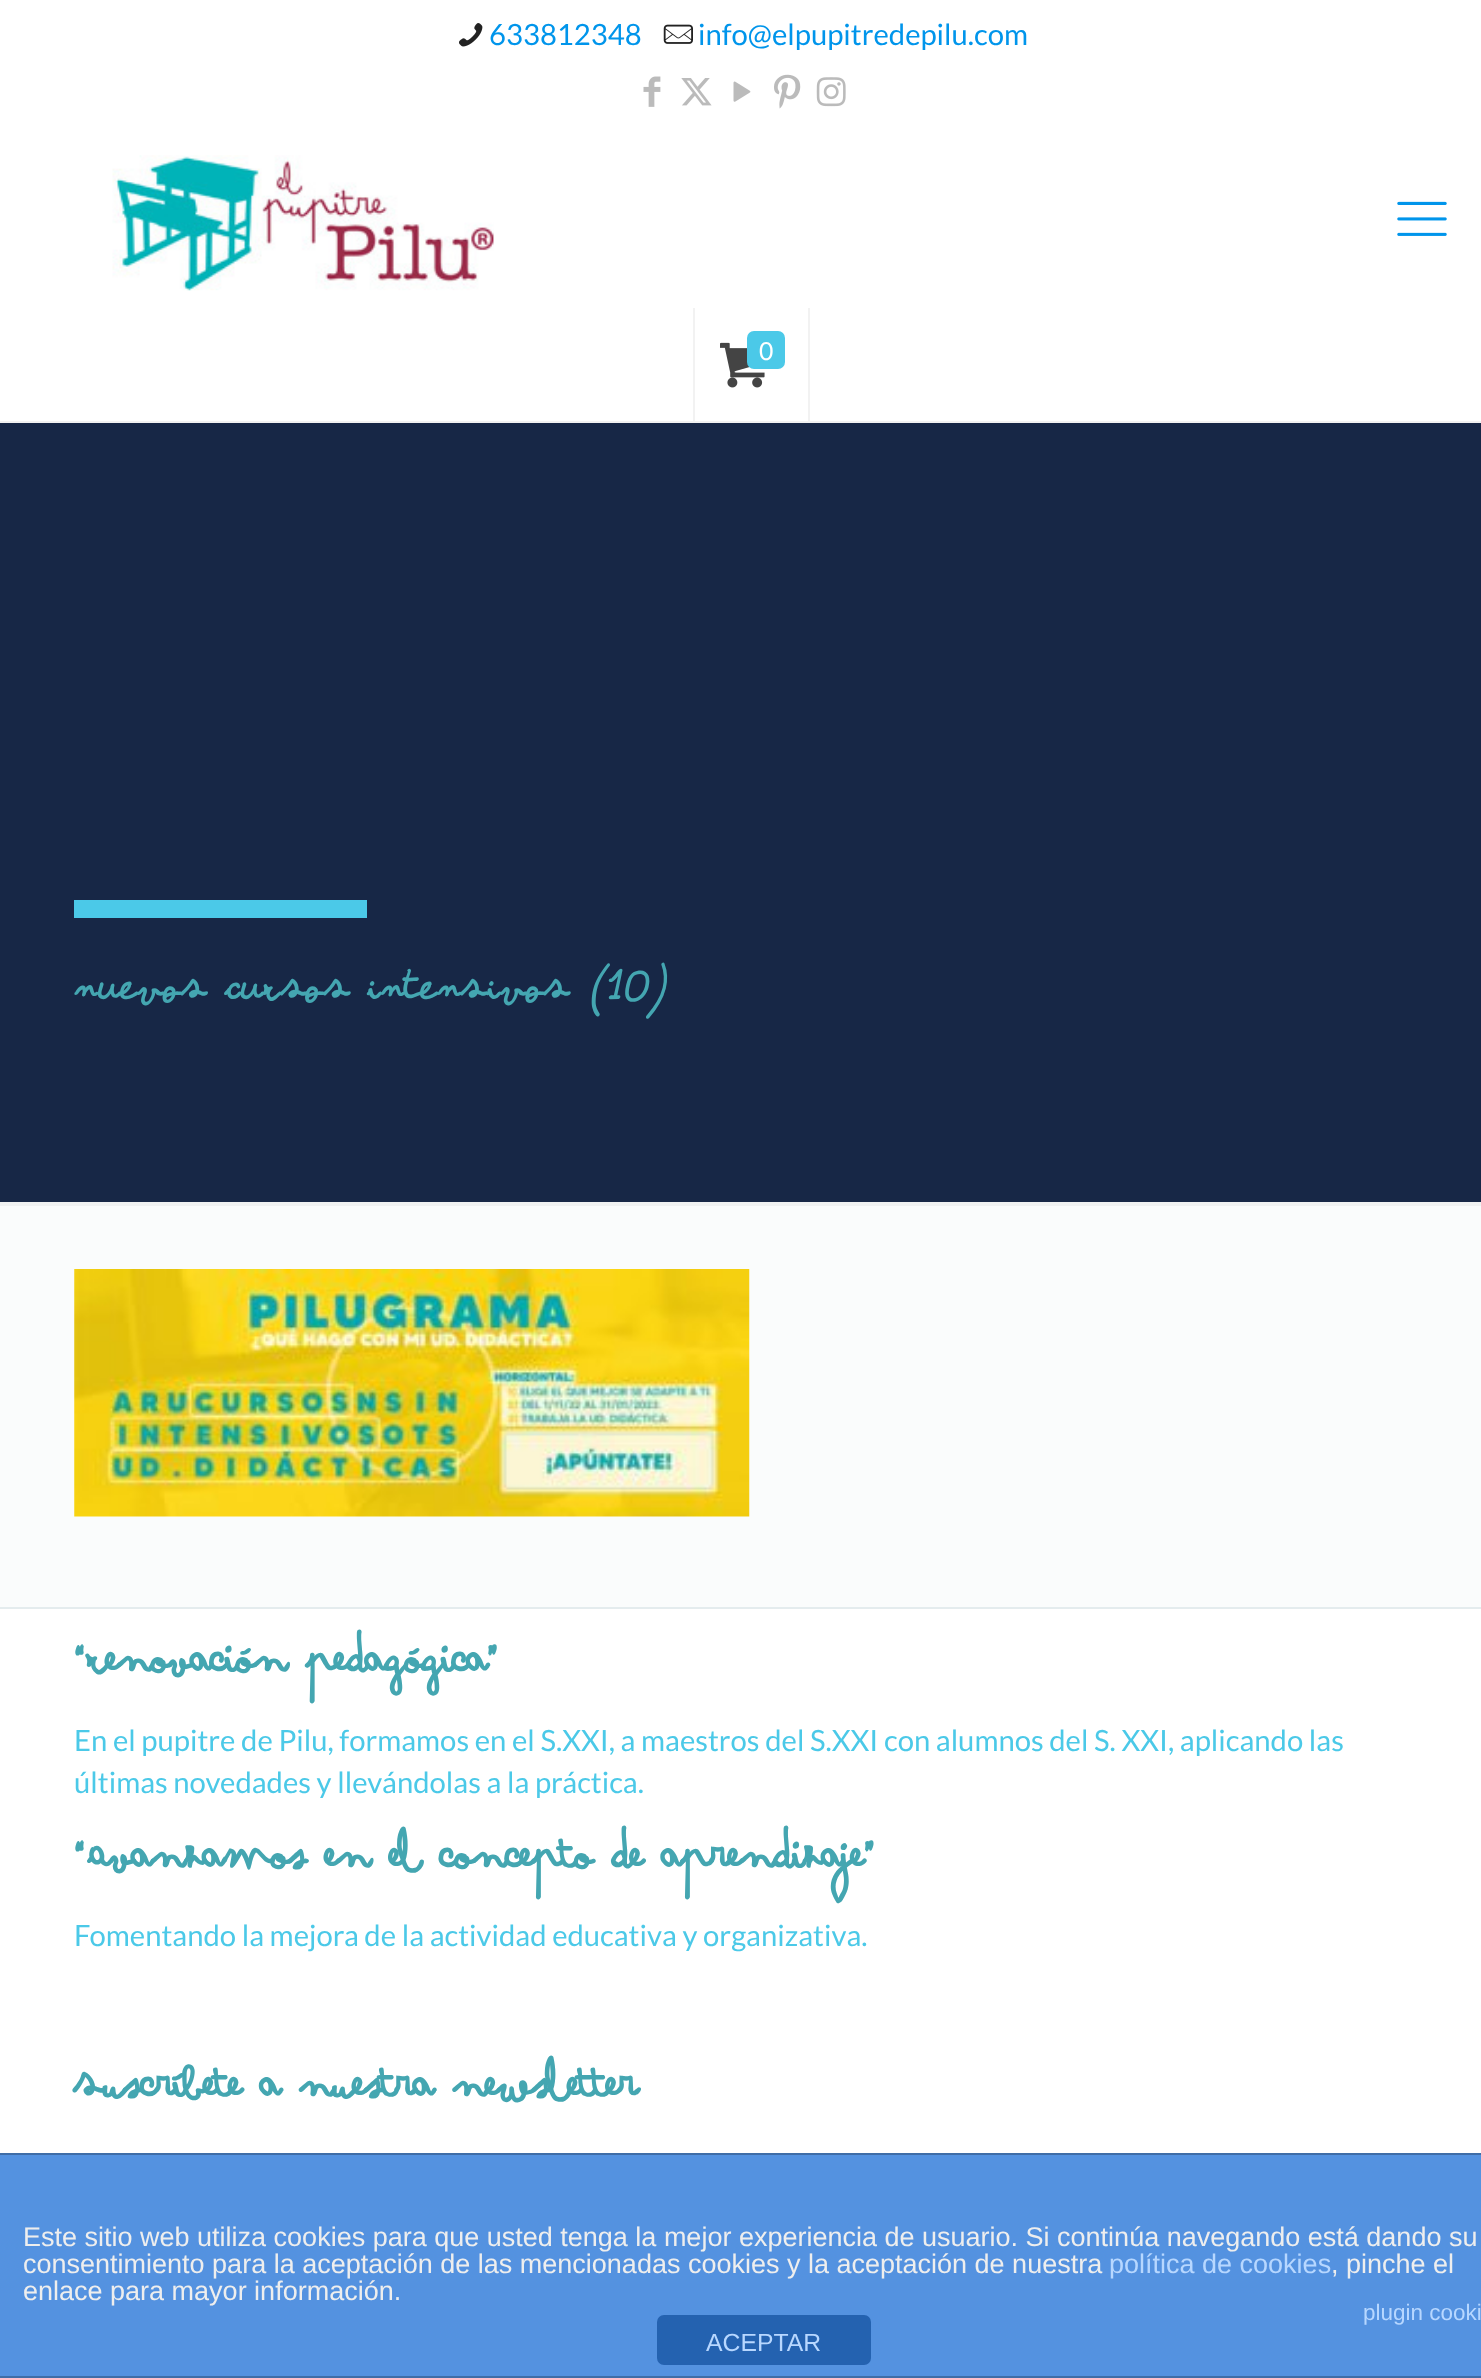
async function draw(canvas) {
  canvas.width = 1481;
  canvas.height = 2378;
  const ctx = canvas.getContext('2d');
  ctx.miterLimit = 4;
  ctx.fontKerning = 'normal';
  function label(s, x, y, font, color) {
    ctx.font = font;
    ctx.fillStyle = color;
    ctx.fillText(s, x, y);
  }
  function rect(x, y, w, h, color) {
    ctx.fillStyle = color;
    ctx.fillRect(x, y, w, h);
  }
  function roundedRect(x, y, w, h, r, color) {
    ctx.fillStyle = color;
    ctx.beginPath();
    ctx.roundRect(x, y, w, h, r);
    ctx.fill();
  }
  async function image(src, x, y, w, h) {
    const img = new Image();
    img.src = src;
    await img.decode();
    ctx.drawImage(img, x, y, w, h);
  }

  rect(0, 0, 1481, 2378, '#fafcfc');
  rect(0, 423, 1481, 779, '#172746');
  rect(0, 0, 1481, 421, '#fff');
  await image('assets/img1.png', 459, 23, 24, 24);
  label('633812348', 489, 45, '29.25px Lato', '#0095eb');
  await image('assets/img2.png', 663, 24, 30, 20);
  label('info@elpupitredepilu.com', 698, 45, '29.25px Lato', '#0095eb');
  await image('assets/img3.png', 643, 76, 18, 31);
  await image('assets/img4.png', 681, 78, 31, 28);
  await image('assets/img5.png', 733, 81, 18, 21);
  await image('assets/img6.png', 774, 74, 27, 35);
  await image('assets/img7.png', 816, 77, 30, 30);
  rect(0, 421, 1481, 2, '#f2f2f2');
  await image('assets/img8.png', 112, 155, 382, 136);
  await image('assets/img9.png', 1397, 201, 50, 35);
  rect(808, 308, 2, 113, '#f2f2f2');
  rect(693, 308, 2, 113, '#f2f2f2');
  await image('assets/img10.png', 720, 342, 45, 46);
  roundedRect(747, 331, 38, 38, 7, '#4bc9e8');
  label('0', 759, 360, '24.75px Lato', '#fff');
  rect(74, 900, 293, 18, '#4bc9e8');
  ctx.letterSpacing = '2.25px';
  label('NUEVOS CURSOS INTENSIVOS (10)', 74, 999, 'italic bold 58.5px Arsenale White', '#44a6b1');
  rect(0, 1202, 1481, 4, '#f0f2f2');
  await image('assets/img11.png', 74, 1269, 676, 248);
  rect(0, 1609, 1481, 544, '#fff');
  rect(0, 1607, 1481, 2, '#e4ecee');
  ctx.letterSpacing = '0px';
  label('“Renovación pedagógica”', 74, 1672, 'bold 73.1px Arsenale White', '#44a6b1');
  label('En el pupitre de Pilu, formamos en el S.XXI, a maestros del S.XXI con alumnos del S. XXI, aplicando las', 74, 1751, '29.25px Lato', '#4bc9e8');
  label('últimas novedades y llevándolas a la práctica.', 74, 1793, '29.25px Lato', '#4bc9e8');
  label('“Avanzamos en el concepto de aprendizaje”', 74, 1868, 'bold 73.1px Arsenale White', '#44a6b1');
  label('Fomentando la mejora de la actividad educativa y organizativa.', 74, 1946, '29.25px Lato', '#4bc9e8');
  label('Suscríbete a nuestra newsletter', 74, 2097, 'bold 73.1px Arsenale White', '#44a6b1');
  rect(0, 2155, 1481, 221, '#5492e0');
  rect(0, 2153, 1481, 2, '#3f6da7');
  rect(0, 2376, 1481, 2, '#3f6da7');
  label('Este sitio web utiliza cookies para que usted tenga la mejor experiencia de usuario. Si continúa navegando está dando su', 23, 2246, '27px Liberation Sans', '#eee');
  label('consentimiento para la aceptación de las mencionadas cookies y la aceptación de nuestra', 23, 2273, '27px Liberation Sans', '#eee');
  label('política de cookies', 1109, 2273, '27px Liberation Sans', '#b7d7ff');
  label(', pinche el', 1331, 2273, '27px Liberation Sans', '#eee');
  label('enlace para mayor información.', 23, 2300, '27px Liberation Sans', '#eee');
  label('plugin cooki', 1363, 2320, '22.5px Liberation Sans', '#b7d7ff');
  roundedRect(657, 2315, 214, 50, 7, '#2462b0');
  label('ACEPTAR', 706, 2351, '24.75px Liberation Sans', '#b7d7ff');
}

draw(document.querySelector('canvas'));
